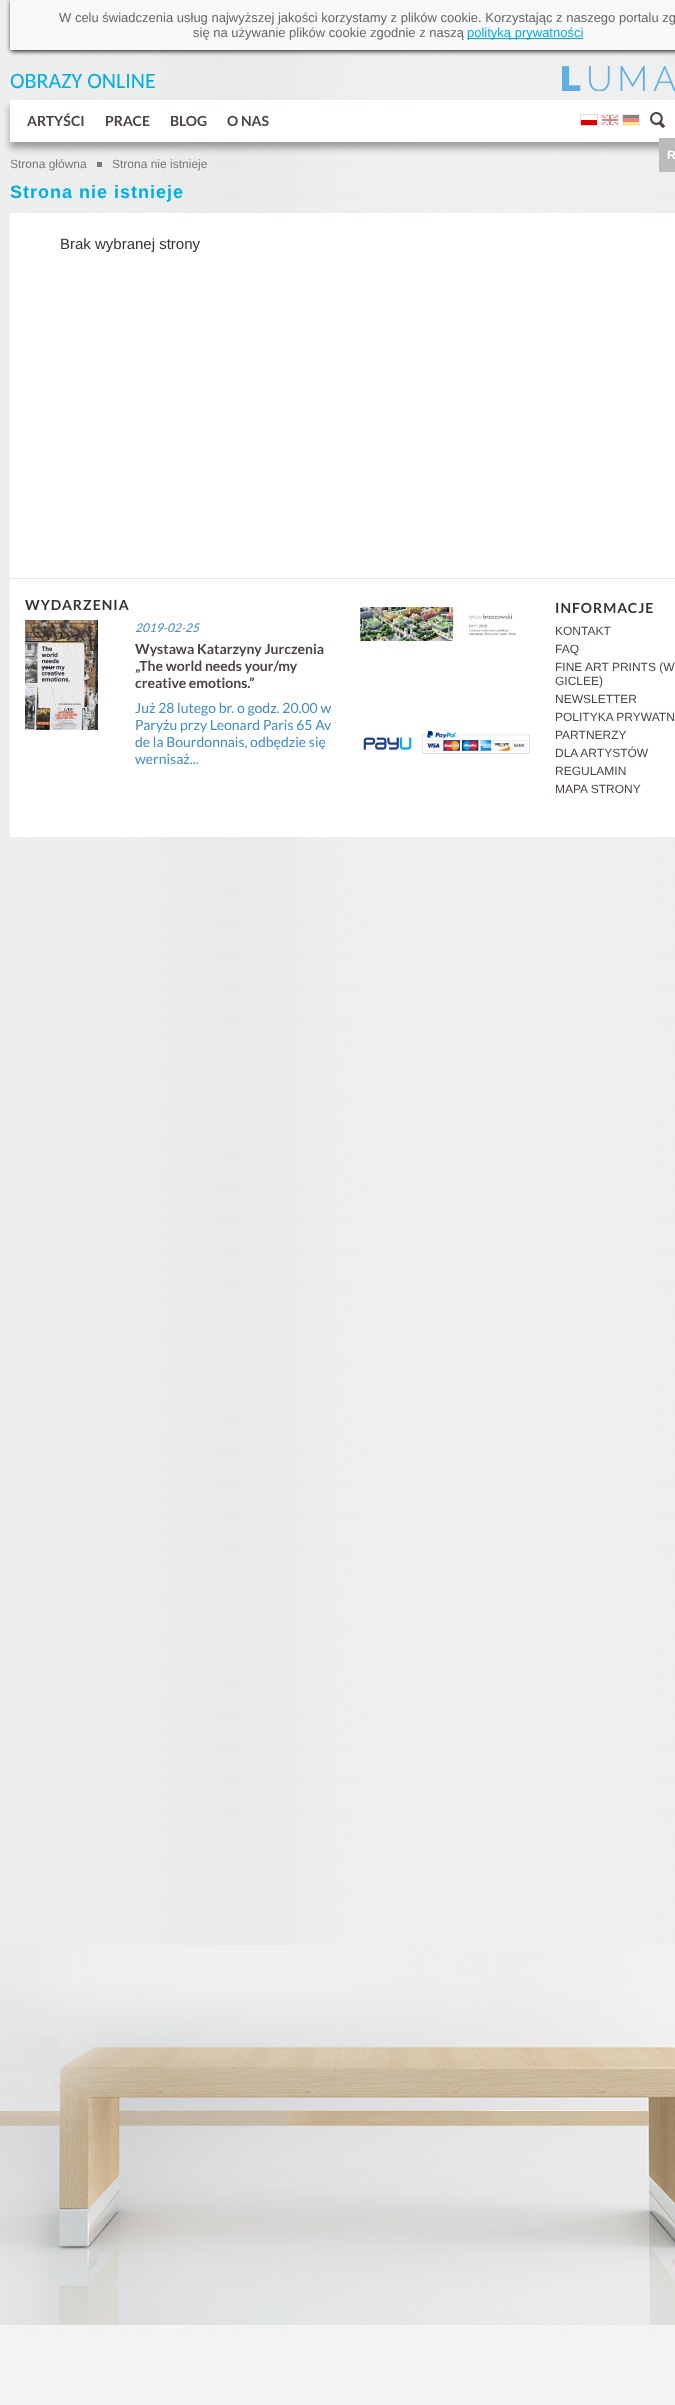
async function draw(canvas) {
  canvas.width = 675;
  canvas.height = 2405;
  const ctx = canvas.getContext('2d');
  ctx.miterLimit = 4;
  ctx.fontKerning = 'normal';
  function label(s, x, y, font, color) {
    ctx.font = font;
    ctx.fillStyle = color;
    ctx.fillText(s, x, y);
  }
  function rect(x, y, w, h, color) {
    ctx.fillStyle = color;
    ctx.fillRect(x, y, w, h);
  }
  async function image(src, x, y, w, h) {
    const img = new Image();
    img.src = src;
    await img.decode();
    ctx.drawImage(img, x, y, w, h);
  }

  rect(0, 0, 675, 2405, '#fff');
  await image('assets/img1.png', 0, 0, 675, 1945);
  await image('assets/img2.png', 0, 1945, 675, 460);
  ctx.fillStyle = '#000';
  ctx.filter = 'blur(2.5px)';
  ctx.beginPath();
  ctx.rect(11, 1, 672, 50);
  ctx.fill();
  ctx.filter = 'none';
  rect(10, 0, 665, 50, '#f8f8f8');
  label('W celu świadczenia usług najwyższej jakości korzystamy z plików cookie. Korzystając z naszego portalu zg', 59, 22, '13px Liberation Sans', '#666');
  label('się na używanie plików cookie zgodnie z naszą', 193, 37, '13px Liberation Sans', '#666');
  rect(467, 38, 116, 1, '#00aee6');
  label('polityką prywatności', 467, 37, '13px Liberation Sans', '#00aee6');
  label('OBRAZY ONLINE', 10, 88, '22px Carlito', '#00aee6');
  await image('assets/img3.png', 562, 66, 113, 25);
  ctx.fillStyle = '#00000059';
  ctx.filter = 'blur(3.5px)';
  ctx.beginPath();
  ctx.rect(10, 106, 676, 42);
  ctx.fill();
  ctx.filter = 'none';
  rect(10, 100, 665, 42, '#fff');
  label('ARTYŚCI', 27, 126, 'bold 14px Lato', '#4d4244');
  label('PRACE', 105, 126, 'bold 14px Lato', '#4d4244');
  label('BLOG', 170, 126, 'bold 14px Lato', '#4d4244');
  label('O NAS', 227, 126, 'bold 14px Lato', '#4d4244');
  await image('assets/img4.png', 580, 114, 18, 12);
  await image('assets/img5.png', 601, 114, 18, 12);
  await image('assets/img6.png', 622, 114, 18, 12);
  await image('assets/img7.png', 650, 112, 15, 16);
  rect(659, 138, 16, 34, '#bbb');
  label('R', 667, 159, 'bold 12px Liberation Sans', '#fff');
  label('Strona główna', 10, 168, '12px Liberation Sans', '#787878');
  rect(97, 162, 5, 5, '#787878');
  label('Strona nie istnieje', 112, 168, '12px Liberation Sans', '#787878');
  ctx.letterSpacing = '1px';
  label('Strona nie istnieje', 10, 198, 'bold 18px Liberation Sans', '#00aee6');
  rect(10, 213, 665, 365, '#fff');
  rect(10, 578, 665, 1, '#e5e5e5');
  ctx.letterSpacing = '0px';
  label('Brak wybranej strony', 60, 249, '15px Liberation Sans', '#333');
  rect(10, 579, 665, 258, '#fff');
  ctx.letterSpacing = '1px';
  label('WYDARZENIA', 25, 610, 'bold 14px Lato', '#333');
  await image('assets/img8.png', 25, 620, 73, 110);
  ctx.letterSpacing = '0px';
  label('2019-02-25', 135, 632, 'italic 12px Lato', '#428bca');
  label('Wystawa Katarzyny Jurczenia', 135, 654, 'bold 14px Lato', '#4d4244');
  label('„The world needs your/my', 135, 671, 'bold 14px Lato', '#4d4244');
  label('creative emotions.”', 135, 688, 'bold 14px Lato', '#4d4244');
  label('Już 28 lutego br. o godz. 20.00 w', 135, 713, '14px Lato', '#428bca');
  label('Paryżu przy Leonard Paris 65 Av', 135, 730, '14px Lato', '#428bca');
  label('de la Bourdonnais, odbędzie się', 135, 747, '14px Lato', '#428bca');
  label('wernisaż...', 135, 764, '14px Lato', '#428bca');
  await image('assets/img9.png', 360, 607, 156, 34);
  await image('assets/img10.png', 363, 729, 167, 25);
  ctx.letterSpacing = '1px';
  label('INFORMACJE', 555, 613, 'bold 14px Lato', '#333');
  ctx.letterSpacing = '0px';
  label('KONTAKT', 555, 635, '12px Liberation Sans', '#4d4244');
  label('FAQ', 555, 653, '12px Liberation Sans', '#4d4244');
  label('FINE ART PRINTS (W', 555, 671, '12px Liberation Sans', '#4d4244');
  label('GICLEE)', 555, 685, '12px Liberation Sans', '#4d4244');
  label('NEWSLETTER', 555, 703, '12px Liberation Sans', '#4d4244');
  label('POLITYKA PRYWATN', 555, 721, '12px Liberation Sans', '#4d4244');
  label('PARTNERZY', 555, 739, '12px Liberation Sans', '#4d4244');
  label('DLA ARTYSTÓW', 555, 757, '12px Liberation Sans', '#4d4244');
  label('REGULAMIN', 555, 775, '12px Liberation Sans', '#4d4244');
  label('MAPA STRONY', 555, 793, '12px Liberation Sans', '#4d4244');
}

draw(document.querySelector('canvas'));
